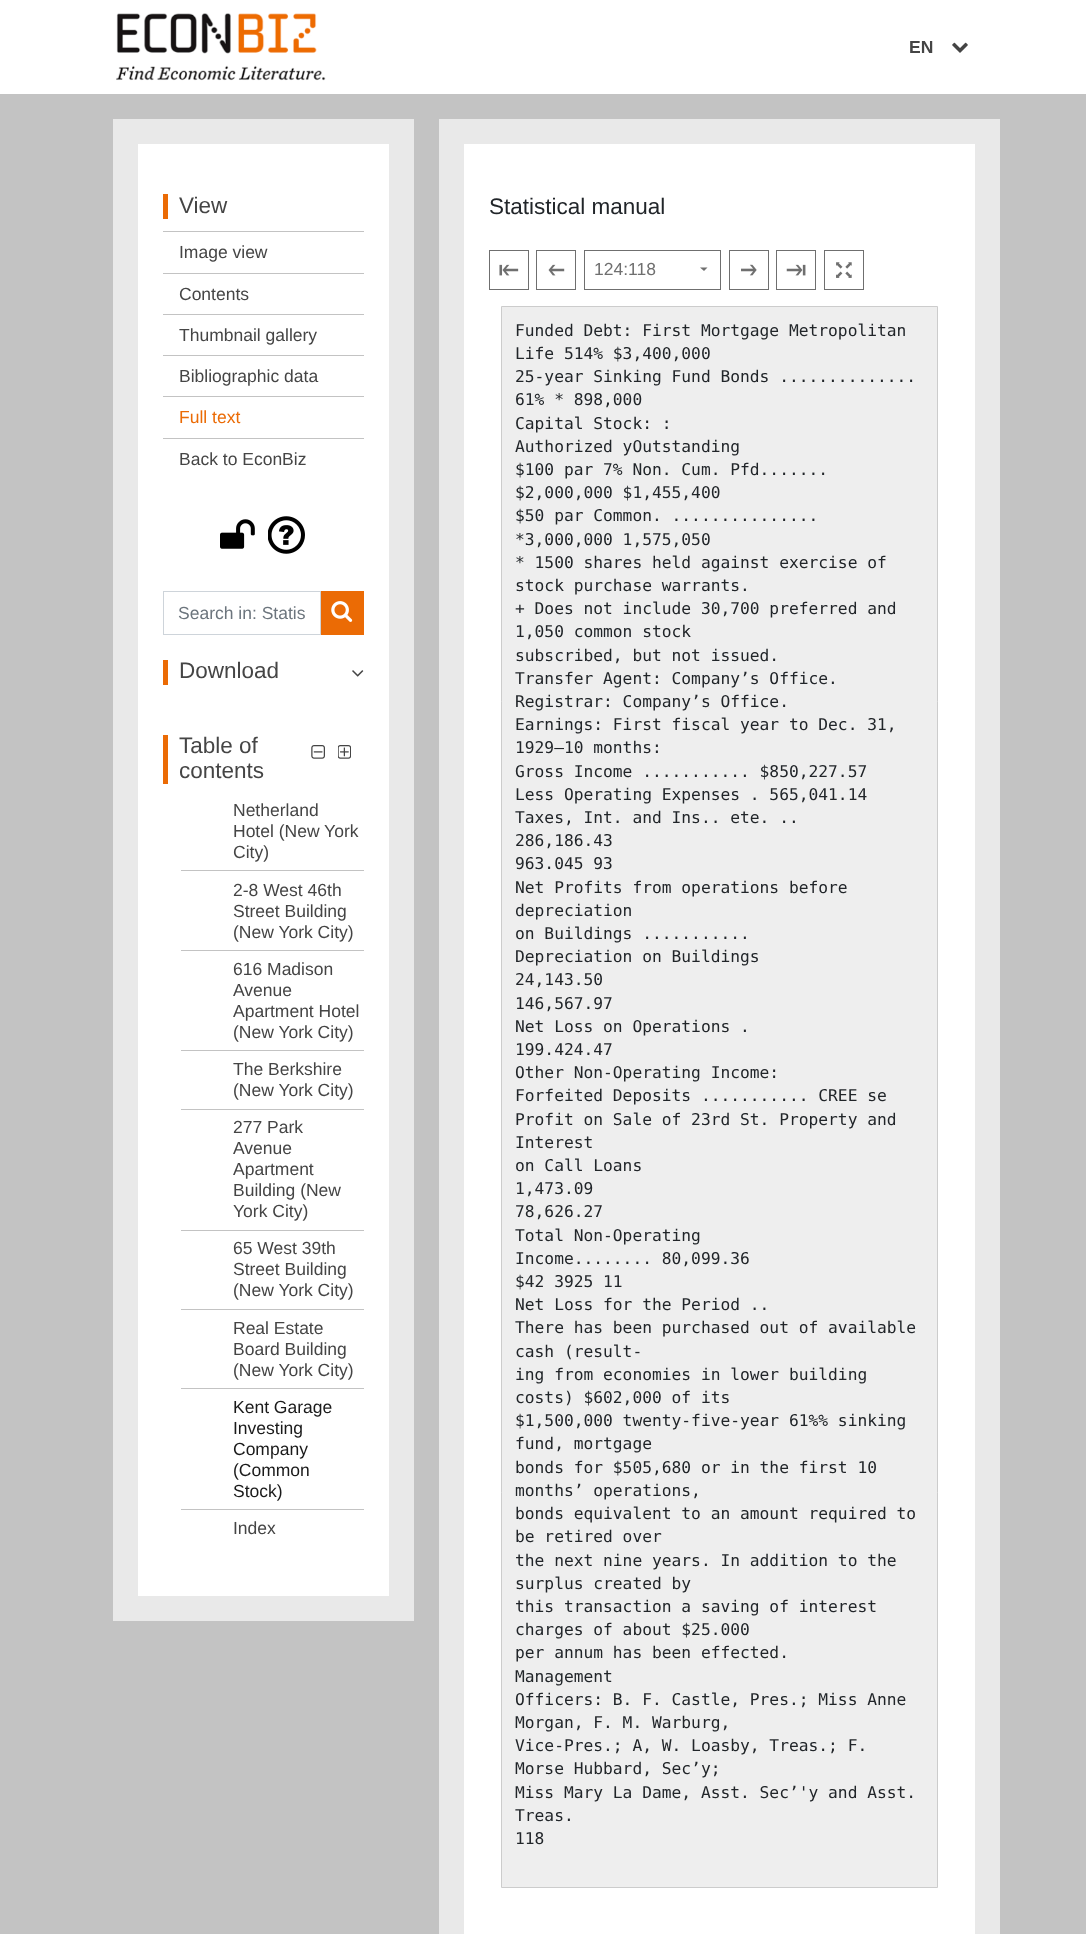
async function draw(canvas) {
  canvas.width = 1086;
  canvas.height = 1934;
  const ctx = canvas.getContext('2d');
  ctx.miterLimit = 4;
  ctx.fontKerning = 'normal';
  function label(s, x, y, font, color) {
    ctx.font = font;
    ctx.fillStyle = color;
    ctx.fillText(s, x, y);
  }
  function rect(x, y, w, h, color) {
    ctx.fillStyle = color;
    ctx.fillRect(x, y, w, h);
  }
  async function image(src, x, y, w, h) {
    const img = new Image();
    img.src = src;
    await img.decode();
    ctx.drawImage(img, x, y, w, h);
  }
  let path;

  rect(0, 0, 1086, 1934, '#fff');
  await image('assets/img1.png', 116, 13, 210, 68);
  label('EN', 909, 53, 'bold 17.5px Liberation Sans', '#454545');
  await image('assets/img2.png', 952, 42, 16, 11);
  rect(0, 94, 1086, 1840, '#c3c3c3');
  rect(113, 119, 301, 1502, '#e9e9e9');
  rect(138, 144, 251, 1452, '#fff');
  rect(163, 194, 5, 25, '#eb6b05');
  label('View', 179, 213, '22.5px Liberation Sans', '#454545');
  rect(163, 231, 201, 1, '#c3c3c3');
  label('Image view', 179, 258, '17.5px Liberation Sans', '#454545');
  rect(163, 273, 201, 1, '#c3c3c3');
  label('Contents', 179, 300, '17.5px Liberation Sans', '#454545');
  rect(163, 314, 201, 1, '#c3c3c3');
  label('Thumbnail gallery', 179, 341, '17.5px Liberation Sans', '#454545');
  rect(163, 355, 201, 1, '#c3c3c3');
  label('Bibliographic data', 179, 382, '17.5px Liberation Sans', '#454545');
  rect(163, 396, 201, 1, '#c3c3c3');
  label('Full text', 179, 423, '17.5px Liberation Sans', '#eb6b05');
  rect(163, 438, 201, 1, '#c3c3c3');
  label('Back to EconBiz', 179, 465, '17.5px Liberation Sans', '#454545');
  await image('assets/img3.png', 220, 519, 35, 30);
  await image('assets/img4.png', 268, 516, 37, 38);
  ctx.strokeStyle = '#ced4da';
  ctx.strokeRect(163.5, 591.5, 157, 43);
  label('Search in: Statis', 178, 619, '17.5px Liberation Sans', '#6c757d');
  rect(321, 591, 43, 44, '#eb6b05');
  await image('assets/img5.png', 331, 601, 22, 21);
  rect(163, 660, 5, 25, '#eb6b05');
  label('Download', 179, 678, '22.5px Liberation Sans', '#454545');
  await image('assets/img6.png', 352, 670, 12, 7);
  rect(163, 735, 5, 49, '#eb6b05');
  label('Table of', 179, 753, '22.5px Liberation Sans', '#454545');
  label('contents', 179, 778, '22.5px Liberation Sans', '#454545');
  await image('assets/img7.png', 311, 745, 14, 14);
  await image('assets/img8.png', 338, 745, 13, 14);
  label('Netherland', 233, 816, '17.5px Liberation Sans', '#454545');
  label('Hotel (New York', 233, 837, '17.5px Liberation Sans', '#454545');
  label('City)', 233, 858, '17.5px Liberation Sans', '#454545');
  rect(181, 870, 183, 1, '#c3c3c3');
  label('2-8 West 46th', 233, 896, '17.5px Liberation Sans', '#454545');
  label('Street Building', 233, 917, '17.5px Liberation Sans', '#454545');
  label('(New York City)', 233, 938, '17.5px Liberation Sans', '#454545');
  rect(181, 950, 183, 1, '#c3c3c3');
  label('616 Madison', 233, 975, '17.5px Liberation Sans', '#454545');
  label('Avenue', 233, 996, '17.5px Liberation Sans', '#454545');
  label('Apartment Hotel', 233, 1017, '17.5px Liberation Sans', '#454545');
  label('(New York City)', 233, 1038, '17.5px Liberation Sans', '#454545');
  rect(181, 1050, 183, 1, '#c3c3c3');
  label('The Berkshire', 233, 1075, '17.5px Liberation Sans', '#454545');
  label('(New York City)', 233, 1096, '17.5px Liberation Sans', '#454545');
  rect(181, 1109, 183, 1, '#c3c3c3');
  label('277 Park', 233, 1133, '17.5px Liberation Sans', '#454545');
  label('Avenue', 233, 1154, '17.5px Liberation Sans', '#454545');
  label('Apartment', 233, 1175, '17.5px Liberation Sans', '#454545');
  label('Building (New', 233, 1196, '17.5px Liberation Sans', '#454545');
  label('York City)', 233, 1217, '17.5px Liberation Sans', '#454545');
  rect(181, 1230, 183, 1, '#c3c3c3');
  label('65 West 39th', 233, 1254, '17.5px Liberation Sans', '#454545');
  label('Street Building', 233, 1275, '17.5px Liberation Sans', '#454545');
  label('(New York City)', 233, 1296, '17.5px Liberation Sans', '#454545');
  rect(181, 1309, 183, 1, '#c3c3c3');
  label('Real Estate', 233, 1334, '17.5px Liberation Sans', '#454545');
  label('Board Building', 233, 1355, '17.5px Liberation Sans', '#454545');
  label('(New York City)', 233, 1376, '17.5px Liberation Sans', '#454545');
  rect(181, 1388, 183, 1, '#c3c3c3');
  label('Kent Garage', 233, 1413, '17.5px Liberation Sans', '#1a1a1a');
  label('Investing', 233, 1434, '17.5px Liberation Sans', '#1a1a1a');
  label('Company', 233, 1455, '17.5px Liberation Sans', '#1a1a1a');
  label('(Common', 233, 1476, '17.5px Liberation Sans', '#1a1a1a');
  label('Stock)', 233, 1497, '17.5px Liberation Sans', '#1a1a1a');
  rect(181, 1509, 183, 1, '#c3c3c3');
  label('Index', 233, 1534, '17.5px Liberation Sans', '#454545');
  rect(439, 119, 561, 1815, '#e9e9e9');
  rect(464, 144, 511, 1790, '#fff');
  label('Statistical manual', 489, 214, '22.5px Liberation Sans', '#212529');
  ctx.strokeStyle = '#6f6f6f';
  ctx.strokeRect(489.5, 250.5, 39, 39);
  await image('assets/img9.png', 499, 264, 20, 12);
  ctx.strokeRect(536.5, 250.5, 39, 39);
  await image('assets/img10.png', 548, 264, 17, 12);
  ctx.strokeRect(584.5, 250.5, 136, 39);
  label('124:118', 594, 275, '17.5px Liberation Sans', '#6f6f6f');
  path = new Path2D('M700 267.5H707.5L704 271Z');
  ctx.fill(path);
  ctx.strokeRect(729.5, 250.5, 39, 39);
  await image('assets/img11.png', 741, 264, 16, 12);
  ctx.strokeRect(776.5, 250.5, 39, 39);
  await image('assets/img12.png', 786, 264, 20, 12);
  ctx.strokeRect(824.5, 250.5, 39, 39);
  await image('assets/img13.png', 836, 262, 16, 16);
  ctx.fillStyle = '#eee';
  ctx.beginPath();
  ctx.rect(501.5, 306.5, 436, 1581);
  ctx.fill();
  ctx.strokeStyle = '#ccc';
  ctx.stroke();
  label('Funded Debt: First Mortgage Metropolitan', 515, 336, '16.25px DejaVu Sans Mono', '#212529');
  label('Life 514% $3,400,000', 515, 359, '16.25px DejaVu Sans Mono', '#212529');
  label('25-year Sinking Fund Bonds ..............', 515, 382, '16.25px DejaVu Sans Mono', '#212529');
  label('61% * 898,000', 515, 405, '16.25px DejaVu Sans Mono', '#212529');
  label('Capital Stock: :', 515, 429, '16.25px DejaVu Sans Mono', '#212529');
  label('Authorized yOutstanding', 515, 452, '16.25px DejaVu Sans Mono', '#212529');
  label('$100 par 7% Non. Cum. Pfd.......', 515, 475, '16.25px DejaVu Sans Mono', '#212529');
  label('$2,000,000 $1,455,400', 515, 498, '16.25px DejaVu Sans Mono', '#212529');
  label('$50 par Common. ...............', 515, 521, '16.25px DejaVu Sans Mono', '#212529');
  label('*3,000,000 1,575,050', 515, 545, '16.25px DejaVu Sans Mono', '#212529');
  label('* 1500 shares held against exercise of', 515, 568, '16.25px DejaVu Sans Mono', '#212529');
  label('stock purchase warrants.', 515, 591, '16.25px DejaVu Sans Mono', '#212529');
  label('+ Does not include 30,700 preferred and', 515, 614, '16.25px DejaVu Sans Mono', '#212529');
  label('1,050 common stock', 515, 637, '16.25px DejaVu Sans Mono', '#212529');
  label('subscribed, but not issued.', 515, 661, '16.25px DejaVu Sans Mono', '#212529');
  label('Transfer Agent: Company’s Office.', 515, 684, '16.25px DejaVu Sans Mono', '#212529');
  label('Registrar: Company’s Office.', 515, 707, '16.25px DejaVu Sans Mono', '#212529');
  label('Earnings: First fiscal year to Dec. 31,', 515, 730, '16.25px DejaVu Sans Mono', '#212529');
  label('1929—10 months:', 515, 753, '16.25px DejaVu Sans Mono', '#212529');
  label('Gross Income ........... $850,227.57', 515, 777, '16.25px DejaVu Sans Mono', '#212529');
  label('Less Operating Expenses . 565,041.14', 515, 800, '16.25px DejaVu Sans Mono', '#212529');
  label('Taxes, Int. and Ins.. ete. ..', 515, 823, '16.25px DejaVu Sans Mono', '#212529');
  label('286,186.43', 515, 846, '16.25px DejaVu Sans Mono', '#212529');
  label('963.045 93', 515, 869, '16.25px DejaVu Sans Mono', '#212529');
  label('Net Profits from operations before', 515, 893, '16.25px DejaVu Sans Mono', '#212529');
  label('depreciation', 515, 916, '16.25px DejaVu Sans Mono', '#212529');
  label('on Buildings ...........', 515, 939, '16.25px DejaVu Sans Mono', '#212529');
  label('Depreciation on Buildings', 515, 962, '16.25px DejaVu Sans Mono', '#212529');
  label('24,143.50', 515, 985, '16.25px DejaVu Sans Mono', '#212529');
  label('146,567.97', 515, 1009, '16.25px DejaVu Sans Mono', '#212529');
  label('Net Loss on Operations .', 515, 1032, '16.25px DejaVu Sans Mono', '#212529');
  label('199.424.47', 515, 1055, '16.25px DejaVu Sans Mono', '#212529');
  label('Other Non-Operating Income:', 515, 1078, '16.25px DejaVu Sans Mono', '#212529');
  label('Forfeited Deposits ........... CREE se', 515, 1101, '16.25px DejaVu Sans Mono', '#212529');
  label('Profit on Sale of 23rd St. Property and', 515, 1125, '16.25px DejaVu Sans Mono', '#212529');
  label('Interest', 515, 1148, '16.25px DejaVu Sans Mono', '#212529');
  label('on Call Loans', 515, 1171, '16.25px DejaVu Sans Mono', '#212529');
  label('1,473.09', 515, 1194, '16.25px DejaVu Sans Mono', '#212529');
  label('78,626.27', 515, 1217, '16.25px DejaVu Sans Mono', '#212529');
  label('Total Non-Operating', 515, 1241, '16.25px DejaVu Sans Mono', '#212529');
  label('Income........ 80,099.36', 515, 1264, '16.25px DejaVu Sans Mono', '#212529');
  label('$42 3925 11', 515, 1287, '16.25px DejaVu Sans Mono', '#212529');
  label('Net Loss for the Period ..', 515, 1310, '16.25px DejaVu Sans Mono', '#212529');
  label('There has been purchased out of available', 515, 1333, '16.25px DejaVu Sans Mono', '#212529');
  label('cash (result-', 515, 1357, '16.25px DejaVu Sans Mono', '#212529');
  label('ing from economies in lower building', 515, 1380, '16.25px DejaVu Sans Mono', '#212529');
  label('costs) $602,000 of its', 515, 1403, '16.25px DejaVu Sans Mono', '#212529');
  label('$1,500,000 twenty-five-year 61%% sinking', 515, 1426, '16.25px DejaVu Sans Mono', '#212529');
  label('fund, mortgage', 515, 1449, '16.25px DejaVu Sans Mono', '#212529');
  label('bonds for $505,680 or in the first 10', 515, 1473, '16.25px DejaVu Sans Mono', '#212529');
  label('months’ operations,', 515, 1496, '16.25px DejaVu Sans Mono', '#212529');
  label('bonds equivalent to an amount required to', 515, 1519, '16.25px DejaVu Sans Mono', '#212529');
  label('be retired over', 515, 1542, '16.25px DejaVu Sans Mono', '#212529');
  label('the next nine years. In addition to the', 515, 1566, '16.25px DejaVu Sans Mono', '#212529');
  label('surplus created by', 515, 1589, '16.25px DejaVu Sans Mono', '#212529');
  label('this transaction a saving of interest', 515, 1612, '16.25px DejaVu Sans Mono', '#212529');
  label('charges of about $25.000', 515, 1635, '16.25px DejaVu Sans Mono', '#212529');
  label('per annum has been effected.', 515, 1658, '16.25px DejaVu Sans Mono', '#212529');
  label('Management', 515, 1682, '16.25px DejaVu Sans Mono', '#212529');
  label('Officers: B. F. Castle, Pres.; Miss Anne', 515, 1705, '16.25px DejaVu Sans Mono', '#212529');
  label('Morgan, F. M. Warburg,', 515, 1728, '16.25px DejaVu Sans Mono', '#212529');
  label('Vice-Pres.; A, W. Loasby, Treas.; F.', 515, 1751, '16.25px DejaVu Sans Mono', '#212529');
  label('Morse Hubbard, Sec’y;', 515, 1774, '16.25px DejaVu Sans Mono', '#212529');
  label('Miss Mary La Dame, Asst. Sec’\'y and Asst.', 515, 1798, '16.25px DejaVu Sans Mono', '#212529');
  label('Treas.', 515, 1821, '16.25px DejaVu Sans Mono', '#212529');
  label('118', 515, 1844, '16.25px DejaVu Sans Mono', '#212529');
}

draw(document.querySelector('canvas'));
